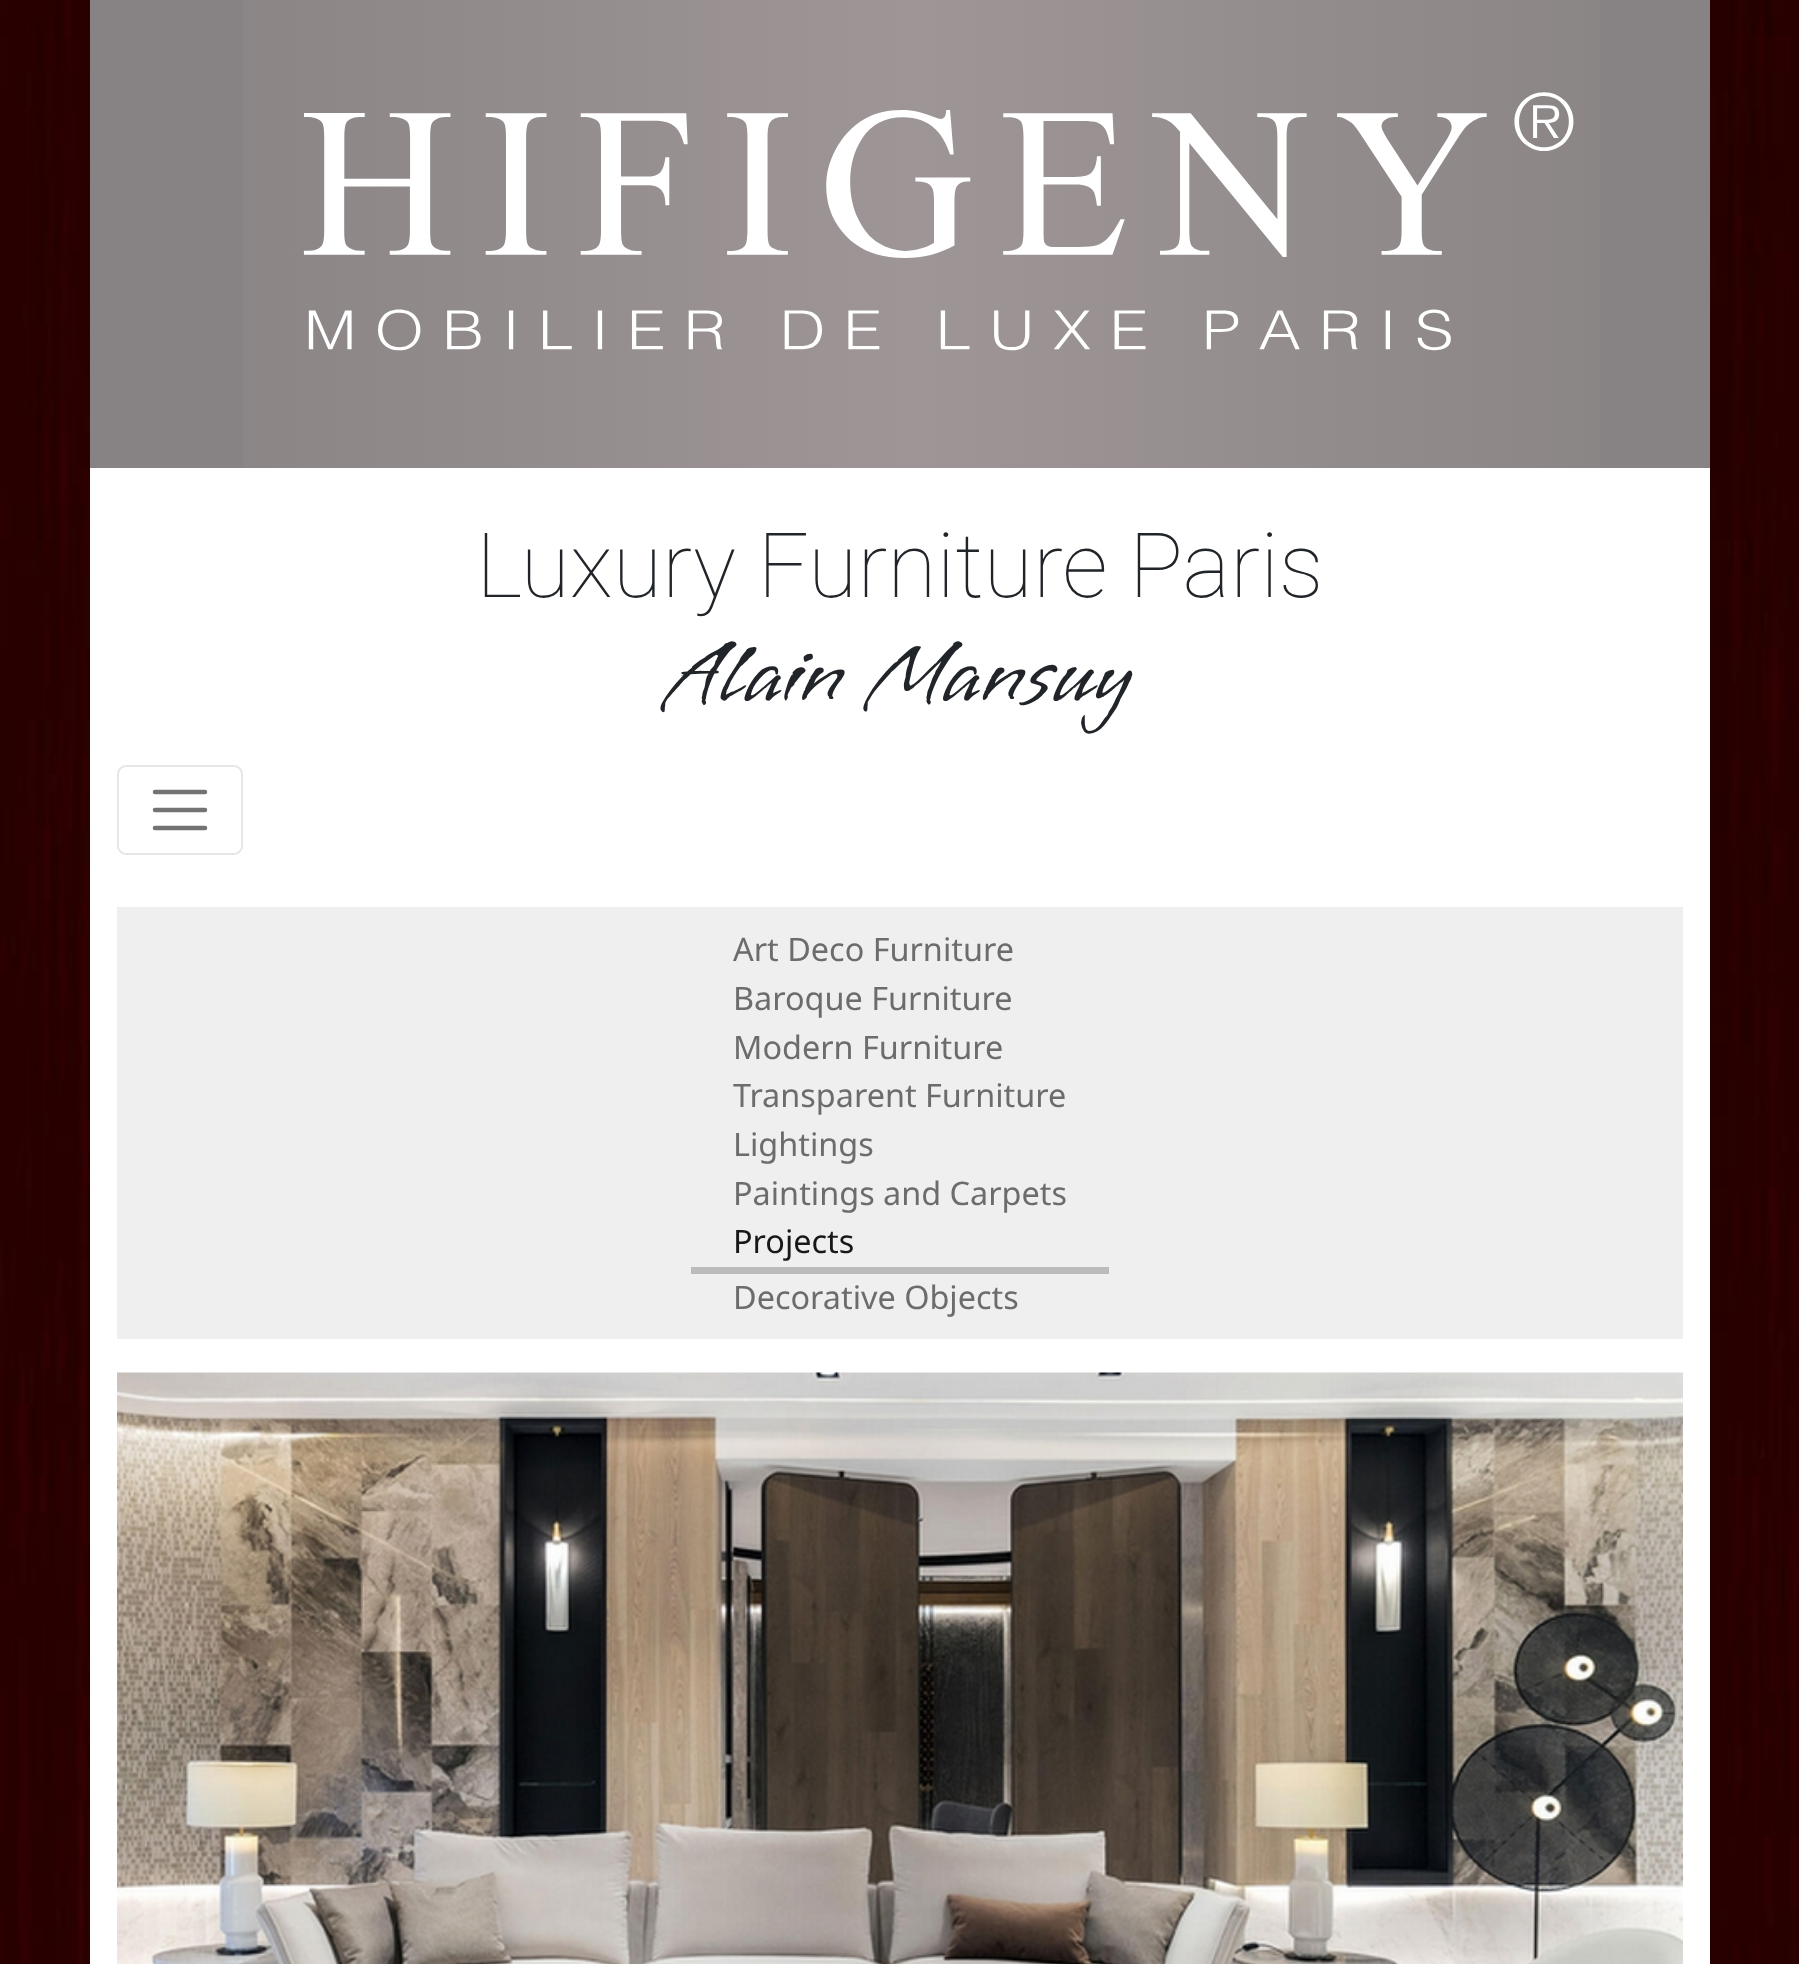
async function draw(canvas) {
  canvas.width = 1799;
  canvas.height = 1964;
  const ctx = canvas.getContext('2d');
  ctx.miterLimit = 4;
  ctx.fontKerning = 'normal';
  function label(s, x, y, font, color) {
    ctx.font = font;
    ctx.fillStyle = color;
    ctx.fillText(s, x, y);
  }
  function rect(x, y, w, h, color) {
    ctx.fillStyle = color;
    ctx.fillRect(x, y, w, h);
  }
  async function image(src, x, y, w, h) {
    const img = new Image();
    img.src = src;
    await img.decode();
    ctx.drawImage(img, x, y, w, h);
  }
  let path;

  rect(0, 0, 1799, 1964, '#fff');
  await image('assets/img1.png', 0, 0, 1799, 1964);
  rect(90, 468, 1620, 1496, '#fff');
  rect(90, 0, 1620, 468, '#878283');
  await image('assets/img2.png', 243, 0, 1357, 468);
  label('Luxury Furniture Paris', 476, 597, '100 90px Roboto', '#212529');
  label('Alain Mansuy', 668, 700, '90px Vujahday Script', '#212529');
  ctx.beginPath();
  ctx.roundRect(118, 766, 124, 88, 8);
  ctx.strokeStyle = '#e6e6e6';
  ctx.lineWidth = 2;
  ctx.stroke();
  path = new Path2D('M155 792H205M155 810H205M155 828H205');
  ctx.strokeStyle = '#737373';
  ctx.lineWidth = 4.5;
  ctx.lineCap = 'round';
  ctx.stroke(path);
  rect(117, 907, 1566, 432, '#efefef');
  label('Art Deco Furniture', 733, 961, '32.4px Noto Sans', '#6c6c6c');
  label('Baroque Furniture', 733, 1010, '32.4px Noto Sans', '#6c6c6c');
  label('Modern Furniture', 733, 1059, '32.4px Noto Sans', '#6c6c6c');
  label('Transparent Furniture', 733, 1107, '32.4px Noto Sans', '#6c6c6c');
  label('Lightings', 733, 1156, '32.4px Noto Sans', '#6c6c6c');
  label('Paintings and Carpets', 733, 1205, '32.4px Noto Sans', '#6c6c6c');
  rect(691, 1267, 418, 7, '#bbb');
  label('Projects', 733, 1253, '32.4px Noto Sans', '#181818');
  label('Decorative Objects', 733, 1309, '32.4px Noto Sans', '#6c6c6c');
  await image('assets/img3.png', 117, 1372, 1566, 592);
}

draw(document.querySelector('canvas'));
